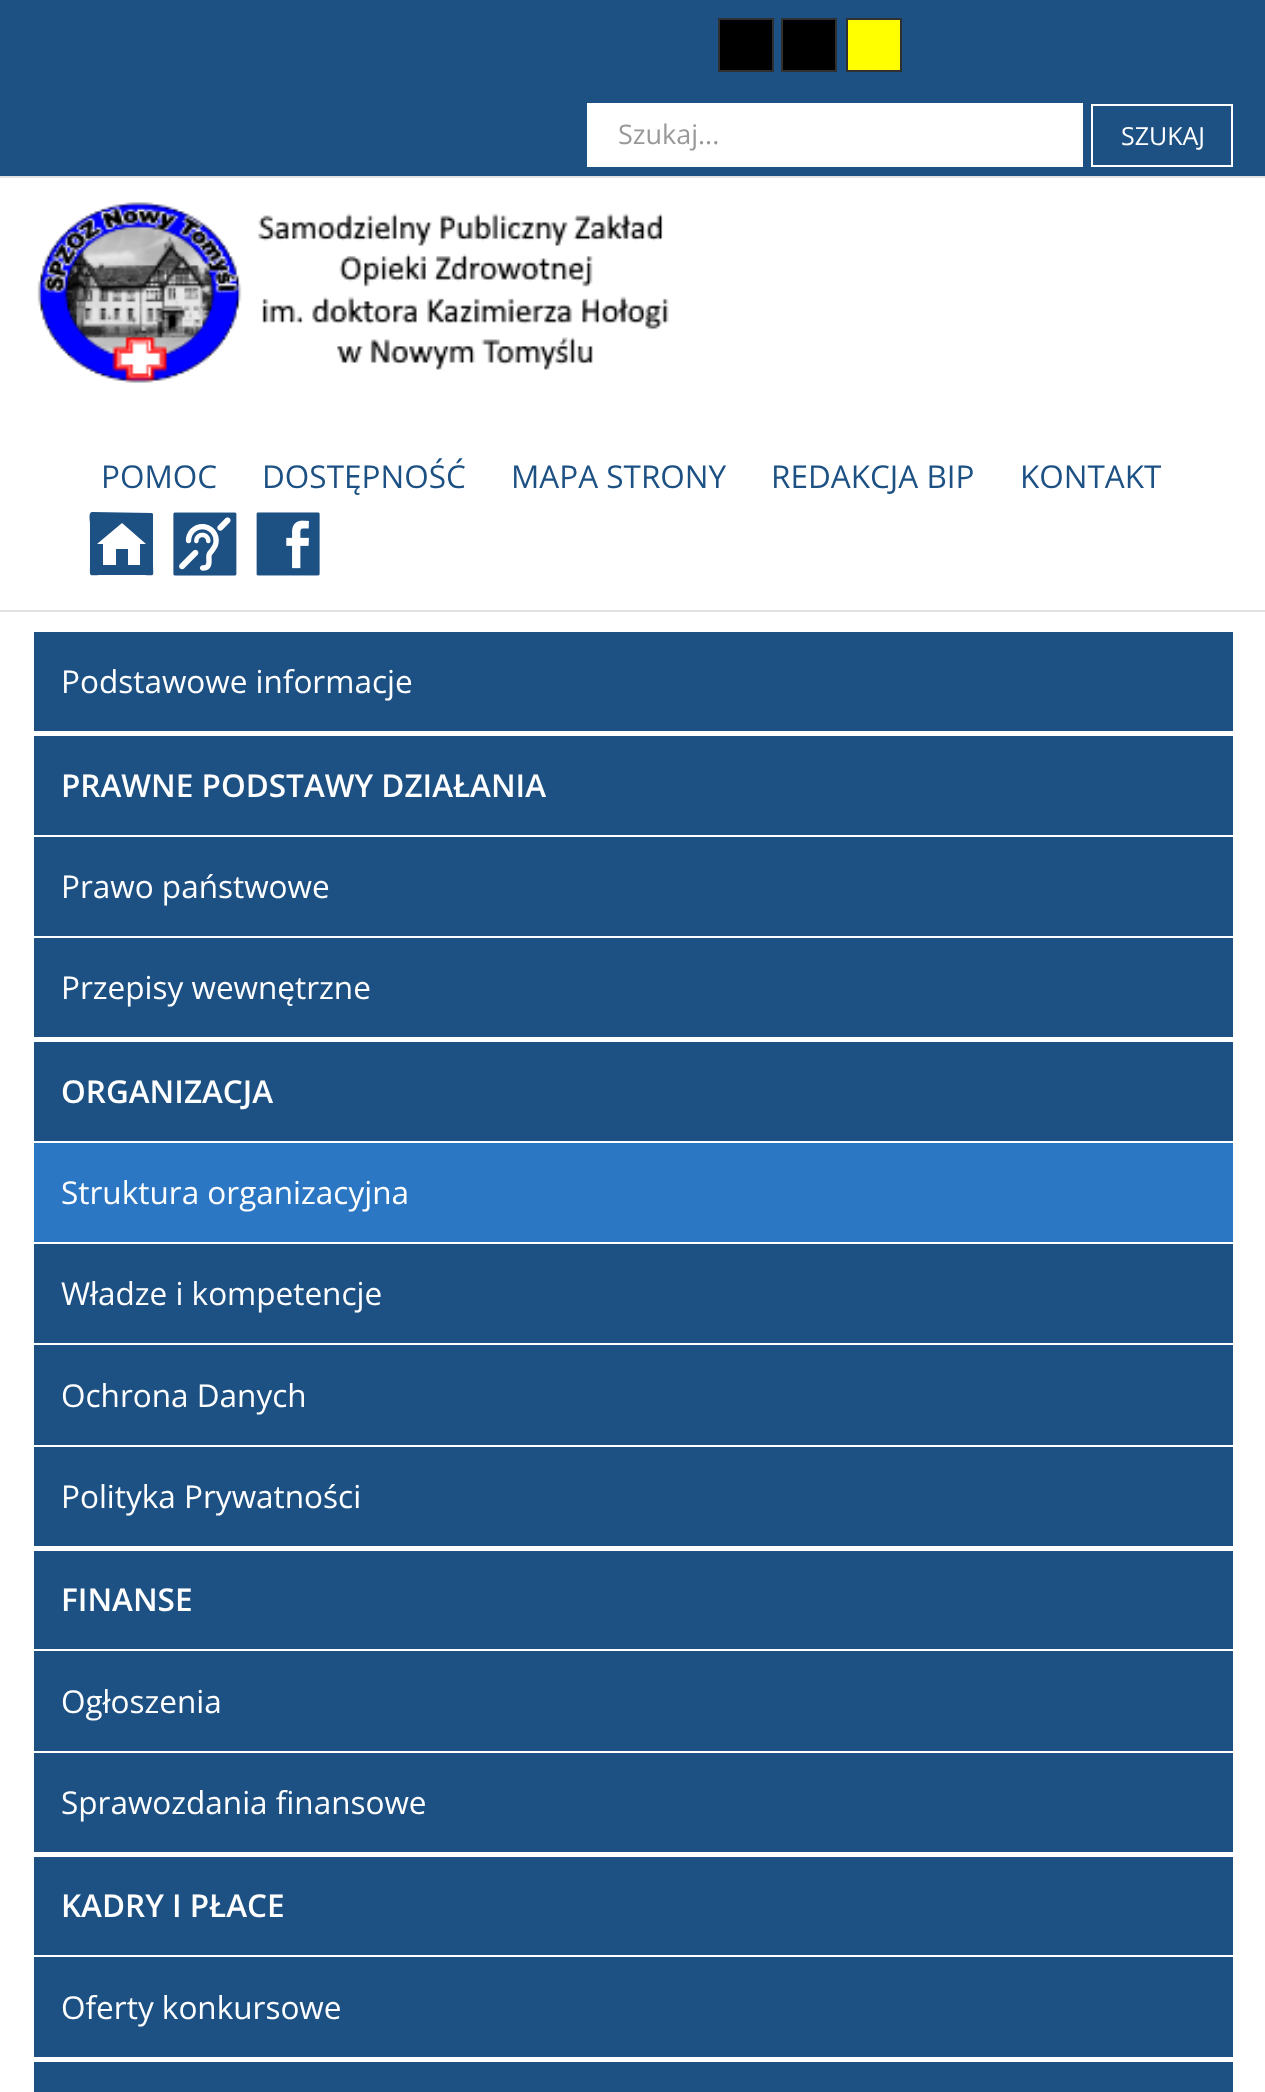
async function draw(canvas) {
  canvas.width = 1265;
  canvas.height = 2092;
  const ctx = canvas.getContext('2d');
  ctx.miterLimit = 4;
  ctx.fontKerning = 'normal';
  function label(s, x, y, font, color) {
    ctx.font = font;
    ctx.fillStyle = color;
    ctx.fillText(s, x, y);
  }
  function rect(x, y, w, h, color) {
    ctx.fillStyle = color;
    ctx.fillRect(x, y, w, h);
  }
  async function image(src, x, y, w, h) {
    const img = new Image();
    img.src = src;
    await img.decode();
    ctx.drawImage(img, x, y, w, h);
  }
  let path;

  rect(0, 0, 1265, 2092, '#fff');
  rect(0, 610, 1265, 2, '#e2e2e2');
  rect(0, 0, 1265, 176, '#1d5184');
  rect(0, 176, 1265, 2, '#e2e2e2');
  ctx.fillStyle = '#000';
  ctx.beginPath();
  ctx.rect(719, 19, 54, 52);
  ctx.fill();
  ctx.strokeStyle = '#303030';
  ctx.lineWidth = 2;
  ctx.stroke();
  ctx.beginPath();
  ctx.rect(782, 19, 54, 52);
  ctx.fill();
  ctx.stroke();
  ctx.fillStyle = '#ff0';
  ctx.beginPath();
  ctx.rect(847, 19, 54, 52);
  ctx.fill();
  ctx.stroke();
  rect(587, 103, 496, 64, '#fff');
  label('Szukaj...', 618, 144, '27px Open Sans', '#999');
  ctx.strokeStyle = '#fff';
  ctx.strokeRect(1092, 105, 140, 61);
  label('SZUKAJ', 1121, 145, '25px Open Sans', '#fff');
  await image('assets/img1.png', 37, 202, 632, 181);
  label('POMOC', 101, 488, '31.5px Open Sans', '#1d5184');
  label('DOSTĘPNOŚĆ', 262, 488, '31.5px Open Sans', '#1d5184');
  label('MAPA STRONY', 511, 488, '31.5px Open Sans', '#1d5184');
  label('REDAKCJA BIP', 771, 488, '31.5px Open Sans', '#1d5184');
  label('KONTAKT', 1020, 488, '31.5px Open Sans', '#1d5184');
  path = new Path2D('M92 512C88 512 90 521 90 524V564C90 578 88 575 102 575H142C156 575 153 578 153 564V514L152 513ZM122 523L146 544H140V565H128V549H116V565H103V544H97Z');
  ctx.fill(path);
  await image('assets/img2.png', 173, 512, 64, 64);
  await image('assets/img3.png', 256, 512, 64, 64);
  rect(34, 632, 1199, 1460, '#1d5184');
  label('Podstawowe informacje', 61, 693, '31.5px Open Sans', '#fff');
  rect(34, 731, 1199, 5, '#fff');
  label('PRAWNE PODSTAWY DZIAŁANIA', 61, 797, '600 31.5px Open Sans', '#fff');
  rect(34, 835, 1199, 2, '#fff');
  label('Prawo państwowe', 61, 898, '31.5px Open Sans', '#fff');
  rect(34, 936, 1199, 2, '#fff');
  label('Przepisy wewnętrzne', 61, 999, '31.5px Open Sans', '#fff');
  rect(34, 1037, 1199, 5, '#fff');
  label('ORGANIZACJA', 61, 1103, '600 31.5px Open Sans', '#fff');
  rect(34, 1143, 1199, 99, '#2b77c3');
  rect(34, 1141, 1199, 2, '#fff');
  label('Struktura organizacyjna', 61, 1204, '31.5px Open Sans', '#fff');
  rect(34, 1242, 1199, 2, '#fff');
  label('Władze i kompetencje', 61, 1305, '31.5px Open Sans', '#fff');
  rect(34, 1343, 1199, 2, '#fff');
  label('Ochrona Danych', 61, 1407, '31.5px Open Sans', '#fff');
  rect(34, 1445, 1199, 2, '#fff');
  label('Polityka Prywatności', 61, 1508, '31.5px Open Sans', '#fff');
  rect(34, 1546, 1199, 5, '#fff');
  label('FINANSE', 61, 1611, '600 31.5px Open Sans', '#fff');
  rect(34, 1649, 1199, 2, '#fff');
  label('Ogłoszenia', 61, 1713, '31.5px Open Sans', '#fff');
  rect(34, 1751, 1199, 2, '#fff');
  label('Sprawozdania finansowe', 61, 1814, '31.5px Open Sans', '#fff');
  rect(34, 1852, 1199, 5, '#fff');
  label('KADRY I PŁACE', 61, 1917, '600 31.5px Open Sans', '#fff');
  rect(34, 1955, 1199, 2, '#fff');
  label('Oferty konkursowe', 61, 2019, '31.5px Open Sans', '#fff');
  rect(34, 2057, 1199, 5, '#fff');
}

draw(document.querySelector('canvas'));
